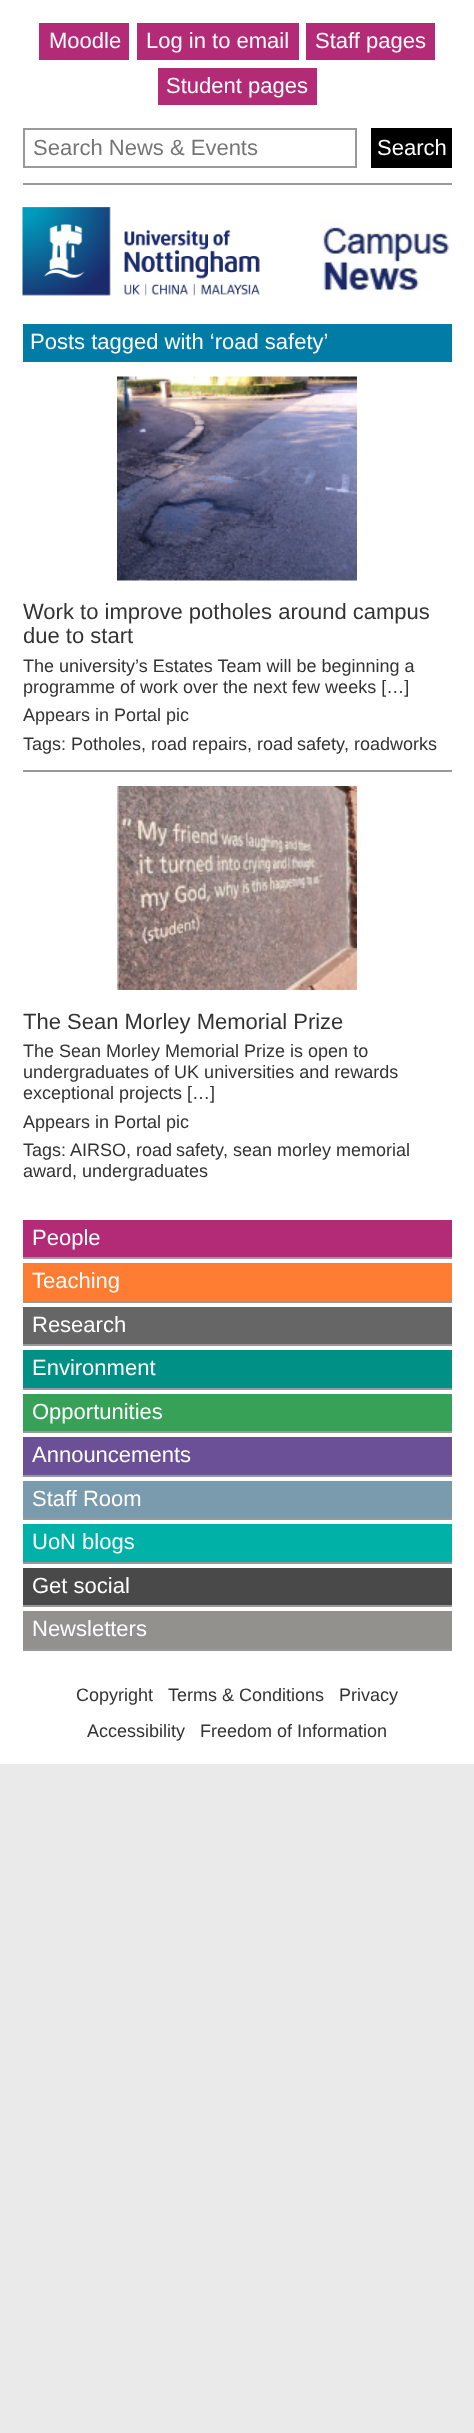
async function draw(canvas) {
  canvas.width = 474;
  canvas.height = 2433;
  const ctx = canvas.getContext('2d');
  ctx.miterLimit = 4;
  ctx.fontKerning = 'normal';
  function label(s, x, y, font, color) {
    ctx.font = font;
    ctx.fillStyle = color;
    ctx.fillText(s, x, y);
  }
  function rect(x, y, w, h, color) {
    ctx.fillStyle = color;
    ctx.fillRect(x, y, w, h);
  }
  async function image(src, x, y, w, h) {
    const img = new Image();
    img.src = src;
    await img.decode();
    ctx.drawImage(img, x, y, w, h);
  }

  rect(0, 0, 474, 2433, '#eaeaea');
  rect(0, 0, 474, 1764, '#fff');
  rect(39, 23, 90, 37, '#b32b76');
  label('Moodle', 49, 48, '22px Liberation Sans', '#fff');
  rect(137, 23, 162, 37, '#b32b76');
  label('Log in to email', 146, 48, '22px Liberation Sans', '#fff');
  rect(306, 23, 129, 37, '#b32b76');
  label('Staff pages', 315, 48, '22px Liberation Sans', '#fff');
  rect(158, 68, 159, 37, '#b32b76');
  label('Student pages', 166, 93, '22px Liberation Sans', '#fff');
  ctx.strokeStyle = '#999';
  ctx.lineWidth = 2;
  ctx.strokeRect(24, 129, 332, 38);
  label('Search News & Events', 33, 155, '22px Liberation Sans', '#757575');
  rect(371, 128, 81, 40, '#000');
  label('Search', 377, 155, '22px Liberation Sans', '#fff');
  rect(23, 183, 429, 2, '#999');
  await image('assets/img1.png', 22, 207, 238, 89);
  await image('assets/img2.png', 321, 220, 129, 71);
  rect(23, 324, 429, 38, '#007ca7');
  label('Posts tagged with ‘road safety’', 30, 349, '22px Liberation Sans', '#fff');
  rect(23, 770, 429, 2, '#999');
  await image('assets/img3.png', 117, 376, 240, 205);
  label('Work to improve potholes around campus', 23, 619, '22px Liberation Sans', '#333');
  label('due to start', 23, 643, '22px Liberation Sans', '#333');
  label('The university’s Estates Team will be beginning a', 23, 672, '18px Liberation Sans', '#333');
  label('programme of work over the next few weeks […]', 23, 693, '18px Liberation Sans', '#333');
  label('Appears in Portal pic', 23, 721, '18px Liberation Sans', '#333');
  label('Tags: Potholes, road repairs,', 23, 750, '18px Liberation Sans', '#333');
  ctx.wordSpacing = '-1px';
  label('road safety', 257, 750, '18px Liberation Sans', '#333');
  ctx.wordSpacing = '0px';
  label(', roadworks', 344, 750, '18px Liberation Sans', '#333');
  await image('assets/img4.png', 117, 786, 240, 204);
  label('The Sean Morley Memorial Prize', 23, 1029, '22px Liberation Sans', '#333');
  label('The Sean Morley Memorial Prize is open to', 23, 1057, '18px Liberation Sans', '#333');
  label('undergraduates of UK universities and rewards', 23, 1078, '18px Liberation Sans', '#333');
  label('exceptional projects […]', 23, 1099, '18px Liberation Sans', '#333');
  label('Appears in Portal pic', 23, 1128, '18px Liberation Sans', '#333');
  label('Tags:', 23, 1156, '18px Liberation Sans', '#333');
  label('AIRSO,', 70, 1156, '18px Liberation Sans', '#333');
  ctx.wordSpacing = '-1px';
  label('road safety', 136, 1156, '18px Liberation Sans', '#333');
  ctx.wordSpacing = '0px';
  label(', sean morley memorial', 223, 1156, '18px Liberation Sans', '#333');
  label('award, undergraduates', 23, 1177, '18px Liberation Sans', '#333');
  rect(23, 1220, 429, 37, '#b32b76');
  rect(23, 1257, 429, 2, '#999');
  label('People', 32, 1245, '22px Liberation Sans', '#fff');
  rect(23, 1263, 429, 38, '#ff7d33');
  rect(23, 1301, 429, 2, '#999');
  label('Teaching', 32, 1288, '22px Liberation Sans', '#fff');
  rect(23, 1344, 429, 2, '#999');
  rect(23, 1307, 429, 37, '#666');
  label('Research', 32, 1332, '22px Liberation Sans', '#fff');
  rect(23, 1350, 429, 38, '#009085');
  rect(23, 1388, 429, 2, '#999');
  label('Environment', 32, 1375, '22px Liberation Sans', '#fff');
  rect(23, 1394, 429, 37, '#37a158');
  rect(23, 1431, 429, 2, '#999');
  label('Opportunities', 32, 1419, '22px Liberation Sans', '#fff');
  rect(23, 1437, 429, 38, '#6c5097');
  rect(23, 1475, 429, 2, '#999');
  label('Announcements', 32, 1462, '22px Liberation Sans', '#fff');
  rect(23, 1481, 429, 37, '#7a9aad');
  rect(23, 1518, 429, 2, '#999');
  label('Staff Room', 32, 1506, '22px Liberation Sans', '#fff');
  rect(23, 1524, 429, 38, '#00b1a7');
  rect(23, 1562, 429, 2, '#999');
  label('UoN blogs', 32, 1549, '22px Liberation Sans', '#fff');
  rect(23, 1568, 429, 37, '#4a4949');
  rect(23, 1605, 429, 2, '#999');
  label('Get social', 32, 1593, '22px Liberation Sans', '#fff');
  rect(23, 1611, 429, 38, '#92918e');
  rect(23, 1649, 429, 2, '#999');
  label('Newsletters', 32, 1636, '22px Liberation Sans', '#fff');
  label('Copyright', 76, 1701, '18px Liberation Sans', '#333');
  label('Terms & Conditions', 168, 1701, '18px Liberation Sans', '#333');
  label('Privacy', 339, 1701, '18px Liberation Sans', '#333');
  label('Accessibility', 87, 1737, '18px Liberation Sans', '#333');
  label('Freedom of Information', 200, 1737, '18px Liberation Sans', '#333');
}

draw(document.querySelector('canvas'));
